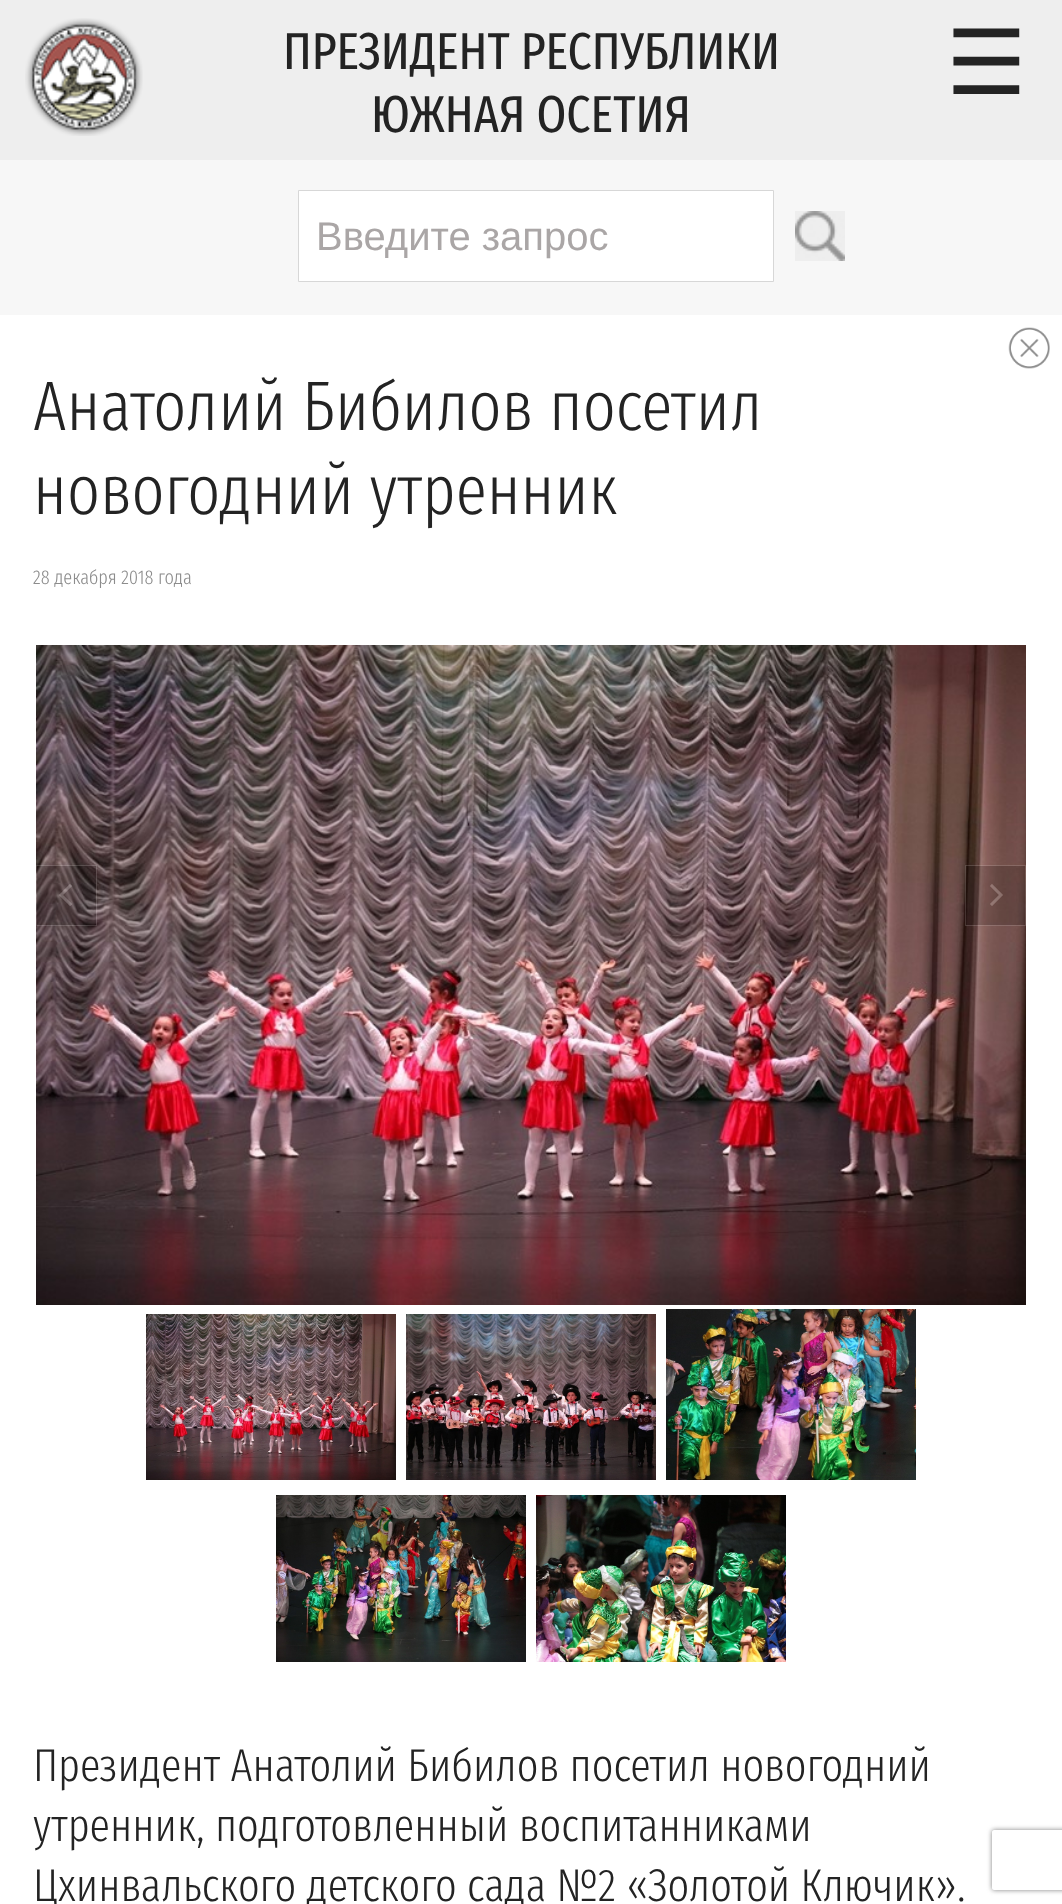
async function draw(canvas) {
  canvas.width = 1062;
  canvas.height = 1904;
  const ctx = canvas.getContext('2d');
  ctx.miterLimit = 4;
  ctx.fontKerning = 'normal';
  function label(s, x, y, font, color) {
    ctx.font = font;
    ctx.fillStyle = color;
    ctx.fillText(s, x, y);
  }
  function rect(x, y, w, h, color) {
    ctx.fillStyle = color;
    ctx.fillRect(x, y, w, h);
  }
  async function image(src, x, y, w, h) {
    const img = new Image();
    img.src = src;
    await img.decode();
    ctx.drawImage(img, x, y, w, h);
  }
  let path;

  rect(0, 0, 1062, 1904, '#f7f7f7');
  rect(0, 0, 1062, 160, '#eee');
  await image('assets/img1.png', 25, 18, 118, 118);
  label('ПРЕЗИДЕНТ РЕСПУБЛИКИ', 283, 69, '52px Fira Sans Extra Condensed', '#232323');
  label('ЮЖНАЯ ОСЕТИЯ', 371, 132, '52px Fira Sans Extra Condensed', '#232323');
  label('☰', 946, 94, '90px DejaVu Sans', '#232323');
  await image('assets/img2.png', 795, 211, 50, 50);
  ctx.fillStyle = '#fff';
  ctx.beginPath();
  ctx.rect(298.5, 190.5, 475, 91);
  ctx.fill();
  ctx.strokeStyle = '#d7d7d7';
  ctx.stroke();
  label('Введите запрос', 316, 250, '40px Liberation Sans', '#aaa6a6');
  rect(0, 315, 1062, 330, '#fff');
  await image('assets/img3.png', 1008, 327, 42, 42);
  label('Анатолий Бибилов посетил', 33, 430, '300 70px Fira Sans Extra Condensed', '#232323');
  label('новогодний утренник', 33, 514, '300 70px Fira Sans Extra Condensed', '#232323');
  label('28 декабря 2018 года', 33, 584, '300 20px Fira Sans Extra Condensed', '#8c8c8c');
  rect(0, 645, 1062, 1259, '#fff');
  await image('assets/img4.png', 36, 645, 990, 660);
  await image('assets/img5.png', 36, 865, 61, 61);
  await image('assets/img6.png', 965, 865, 61, 61);
  await image('assets/img7.png', 146, 1314, 250, 166);
  await image('assets/img8.png', 406, 1314, 250, 166);
  await image('assets/img9.png', 666, 1309, 250, 171);
  await image('assets/img10.png', 276, 1495, 250, 167);
  await image('assets/img11.png', 536, 1495, 250, 167);
  label('Президент Анатолий Бибилов посетил новогодний', 33, 1781, '300 46px Fira Sans Extra Condensed', '#232323');
  label('утренник, подготовленный воспитанниками', 33, 1841, '300 46px Fira Sans Extra Condensed', '#232323');
  label('Цхинвальского детского сада №2 «Золотой Ключик».', 33, 1901, '300 46px Fira Sans Extra Condensed', '#232323');
  ctx.save();
  path = new Path2D('M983 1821H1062V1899H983ZM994 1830H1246C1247 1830 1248 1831 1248 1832V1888C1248 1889 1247 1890 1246 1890H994C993 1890 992 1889 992 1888V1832C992 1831 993 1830 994 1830Z');
  ctx.clip(path, 'evenodd');
  ctx.fillStyle = '#808080';
  ctx.filter = 'blur(2.5px)';
  ctx.beginPath();
  ctx.roundRect(992, 1830, 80, 60, 2);
  ctx.fill();
  ctx.filter = 'none';
  ctx.restore();
}

draw(document.querySelector('canvas'));
